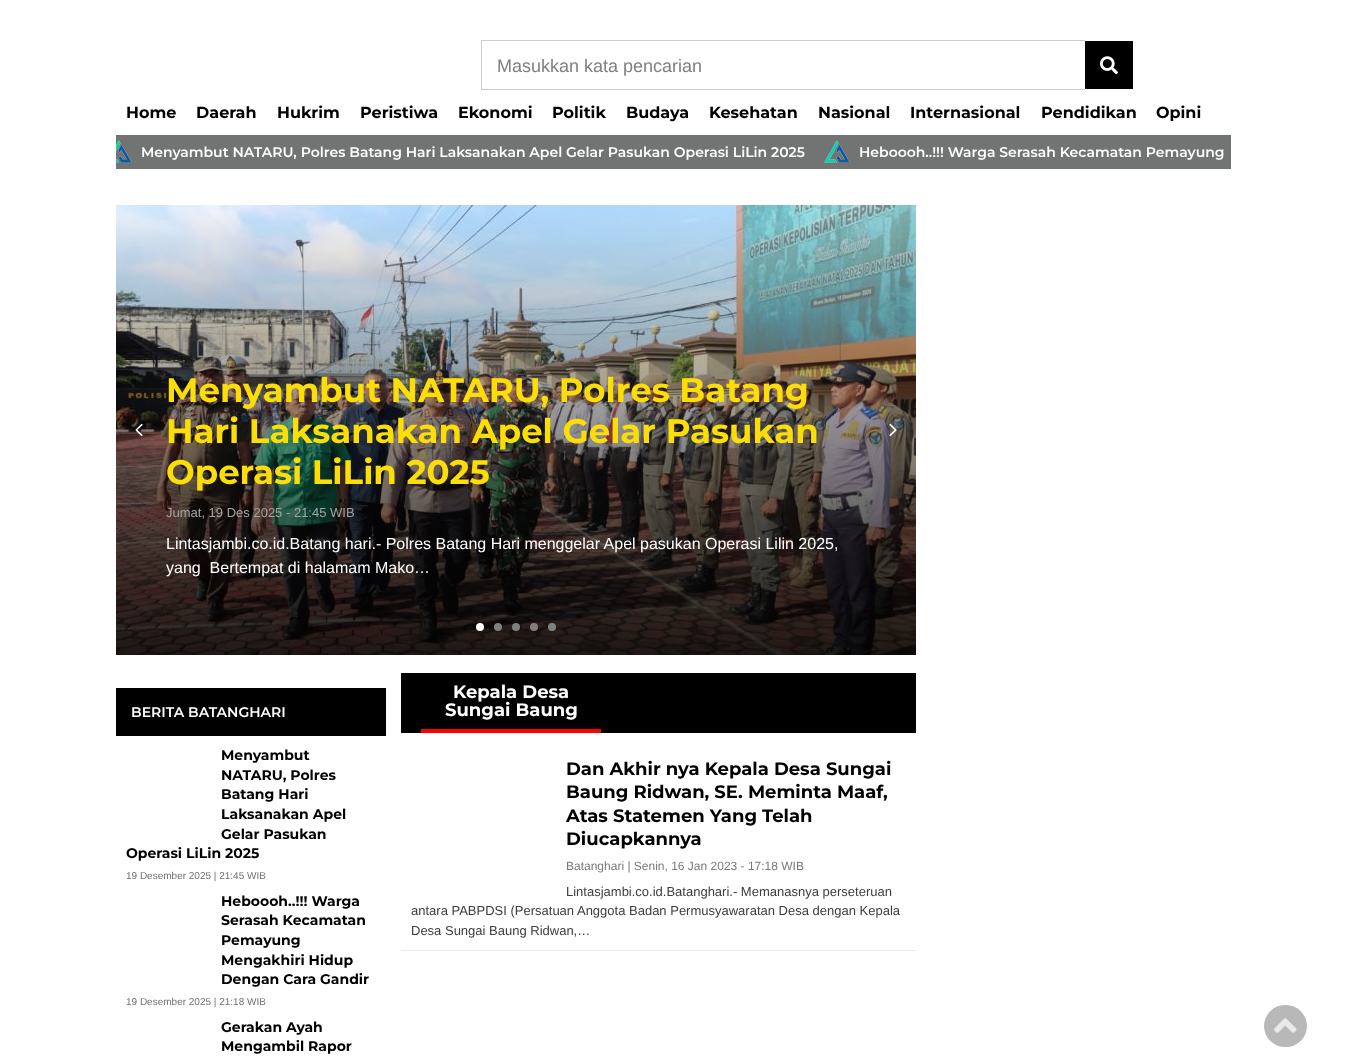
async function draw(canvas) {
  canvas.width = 1347;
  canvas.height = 1062;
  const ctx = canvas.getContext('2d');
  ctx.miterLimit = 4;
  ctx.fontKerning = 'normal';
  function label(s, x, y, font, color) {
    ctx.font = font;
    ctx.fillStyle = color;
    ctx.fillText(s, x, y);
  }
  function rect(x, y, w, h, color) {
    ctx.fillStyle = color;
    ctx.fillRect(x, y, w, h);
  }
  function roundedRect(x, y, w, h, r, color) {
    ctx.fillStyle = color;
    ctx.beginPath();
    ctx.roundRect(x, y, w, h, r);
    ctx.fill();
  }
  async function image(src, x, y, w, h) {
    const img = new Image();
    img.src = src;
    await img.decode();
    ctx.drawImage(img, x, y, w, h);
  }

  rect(0, 0, 1347, 1062, '#fff');
  rect(481, 40, 604, 1, '#ccc');
  rect(481, 89, 604, 1, '#ccc');
  rect(481, 40, 1, 50, '#ccc');
  label('Masukkan kata pencarian', 497, 72, '18px Liberation Sans', '#808080');
  rect(1085, 41, 48, 48, '#000');
  await image('assets/img1.png', 1100, 56, 18, 19);
  label('Home', 126, 118, 'bold 16px Montserrat', '#000');
  label('Daerah', 196, 118, 'bold 16px Montserrat', '#000');
  label('Hukrim', 277, 118, 'bold 16px Montserrat', '#000');
  label('Peristiwa', 360, 118, 'bold 16px Montserrat', '#000');
  label('Ekonomi', 458, 118, 'bold 16px Montserrat', '#000');
  label('Politik', 552, 118, 'bold 16px Montserrat', '#000');
  label('Budaya', 626, 118, 'bold 16px Montserrat', '#000');
  label('Kesehatan', 709, 118, 'bold 16px Montserrat', '#000');
  label('Nasional', 818, 118, 'bold 16px Montserrat', '#000');
  label('Internasional', 910, 118, 'bold 16px Montserrat', '#000');
  label('Pendidikan', 1041, 118, 'bold 16px Montserrat', '#000');
  label('Opini', 1156, 118, 'bold 16px Montserrat', '#000');
  rect(116, 135, 1115, 34, '#727373');
  await image('assets/img2.png', 116, 140, 16, 23);
  label('Menyambut NATARU, Polres Batang Hari Laksanakan Apel Gelar Pasukan Operasi LiLin 2025', 141, 157, '600 14px Montserrat', '#fff');
  await image('assets/img3.png', 824, 140, 26, 23);
  label('Heboooh..!!! Warga Serasah Kecamatan Pemayung', 859, 157, '600 14px Montserrat', '#fff');
  await image('assets/img4.png', 116, 205, 800, 450);
  label('Menyambut NATARU, Polres Batang', 166, 402, 'bold 34px Montserrat', '#fbde08');
  label('Hari Laksanakan Apel Gelar Pasukan', 166, 443, 'bold 34px Montserrat', '#fbde08');
  label('Operasi LiLin 2025', 166, 484, 'bold 34px Montserrat', '#fbde08');
  label('Jumat, 19 Des 2025 - 21:45 WIB', 166, 517, '13px Liberation Sans', '#a4a4a4');
  label('Lintasjambi.co.id.Batang hari.- Polres Batang Hari menggelar Apel pasukan Operasi Lilin 2025,', 166, 549, '16px Liberation Sans', '#fff');
  label('yang  Bertempat di halamam Mako…', 166, 573, '16px Liberation Sans', '#fff');
  await image('assets/img5.png', 135, 423, 8, 14);
  await image('assets/img6.png', 889, 423, 8, 14);
  ctx.beginPath();
  ctx.arc(480, 627, 4, 0, 2 * Math.PI);
  ctx.fill();
  ctx.fillStyle = '#808080';
  ctx.beginPath();
  ctx.arc(498, 627, 4, 0, 2 * Math.PI);
  ctx.fill();
  ctx.beginPath();
  ctx.arc(516, 627, 4, 0, 2 * Math.PI);
  ctx.fill();
  ctx.beginPath();
  ctx.arc(534, 627, 4, 0, 2 * Math.PI);
  ctx.fill();
  ctx.beginPath();
  ctx.arc(552, 627, 4, 0, 2 * Math.PI);
  ctx.fill();
  rect(116, 688, 270, 48, '#000');
  label('BERITA BATANGHARI', 131, 717, '600 14px Montserrat', '#fff');
  label('Menyambut', 221, 760, 'bold 14px Montserrat', '#000');
  label('NATARU, Polres', 221, 780, 'bold 14px Montserrat', '#000');
  label('Batang Hari', 221, 799, 'bold 14px Montserrat', '#000');
  label('Laksanakan Apel', 221, 819, 'bold 14px Montserrat', '#000');
  label('Gelar Pasukan', 221, 839, 'bold 14px Montserrat', '#000');
  label('Operasi LiLin 2025', 126, 858, 'bold 14px Montserrat', '#000');
  label('19 Desember 2025 | 21:45 WIB', 126, 879, '10px Liberation Sans', '#707070');
  label('Heboooh..!!! Warga', 221, 906, 'bold 14px Montserrat', '#000');
  label('Serasah Kecamatan', 221, 925, 'bold 14px Montserrat', '#000');
  label('Pemayung', 221, 945, 'bold 14px Montserrat', '#000');
  label('Mengakhiri Hidup', 221, 965, 'bold 14px Montserrat', '#000');
  label('Dengan Cara Gandir', 221, 984, 'bold 14px Montserrat', '#000');
  label('19 Desember 2025 | 21:18 WIB', 126, 1005, '10px Liberation Sans', '#707070');
  label('Gerakan Ayah', 221, 1032, 'bold 14px Montserrat', '#000');
  label('Mengambil Rapor', 221, 1051, 'bold 14px Montserrat', '#000');
  rect(401, 673, 515, 60, '#000');
  rect(421, 729, 180, 4, '#f00');
  label('Kepala Desa', 453, 698, 'bold 18px Montserrat', '#fff');
  label('Sungai Baung', 445, 716, 'bold 18px Montserrat', '#fff');
  rect(401, 950, 515, 1, '#ececec');
  label('Dan Akhir nya Kepala Desa Sungai', 566, 775, 'bold 18px Montserrat', '#000');
  label('Baung Ridwan, SE. Meminta Maaf,', 566, 798, 'bold 18px Montserrat', '#000');
  label('Atas Statemen Yang Telah', 566, 822, 'bold 18px Montserrat', '#000');
  label('Diucapkannya', 566, 845, 'bold 18px Montserrat', '#000');
  label('Batanghari | Senin, 16 Jan 2023 - 17:18 WIB', 566, 870, '12px Liberation Sans', '#797979');
  label('Lintasjambi.co.id.Batanghari.- Memanasnya perseteruan', 566, 896, '13px Liberation Sans', '#3d3d3d');
  label('antara PABPDSI (Persatuan Anggota Badan Permusyawaratan Desa dengan Kepala', 411, 915, '13px Liberation Sans', '#3d3d3d');
  label('Desa Sungai Baung Ridwan,…', 411, 935, '13px Liberation Sans', '#3d3d3d');
  roundedRect(1264, 1005, 43, 42, 21, '#b8b8b8');
  await image('assets/img7.png', 1274, 1018, 23, 15);
}

draw(document.querySelector('canvas'));
